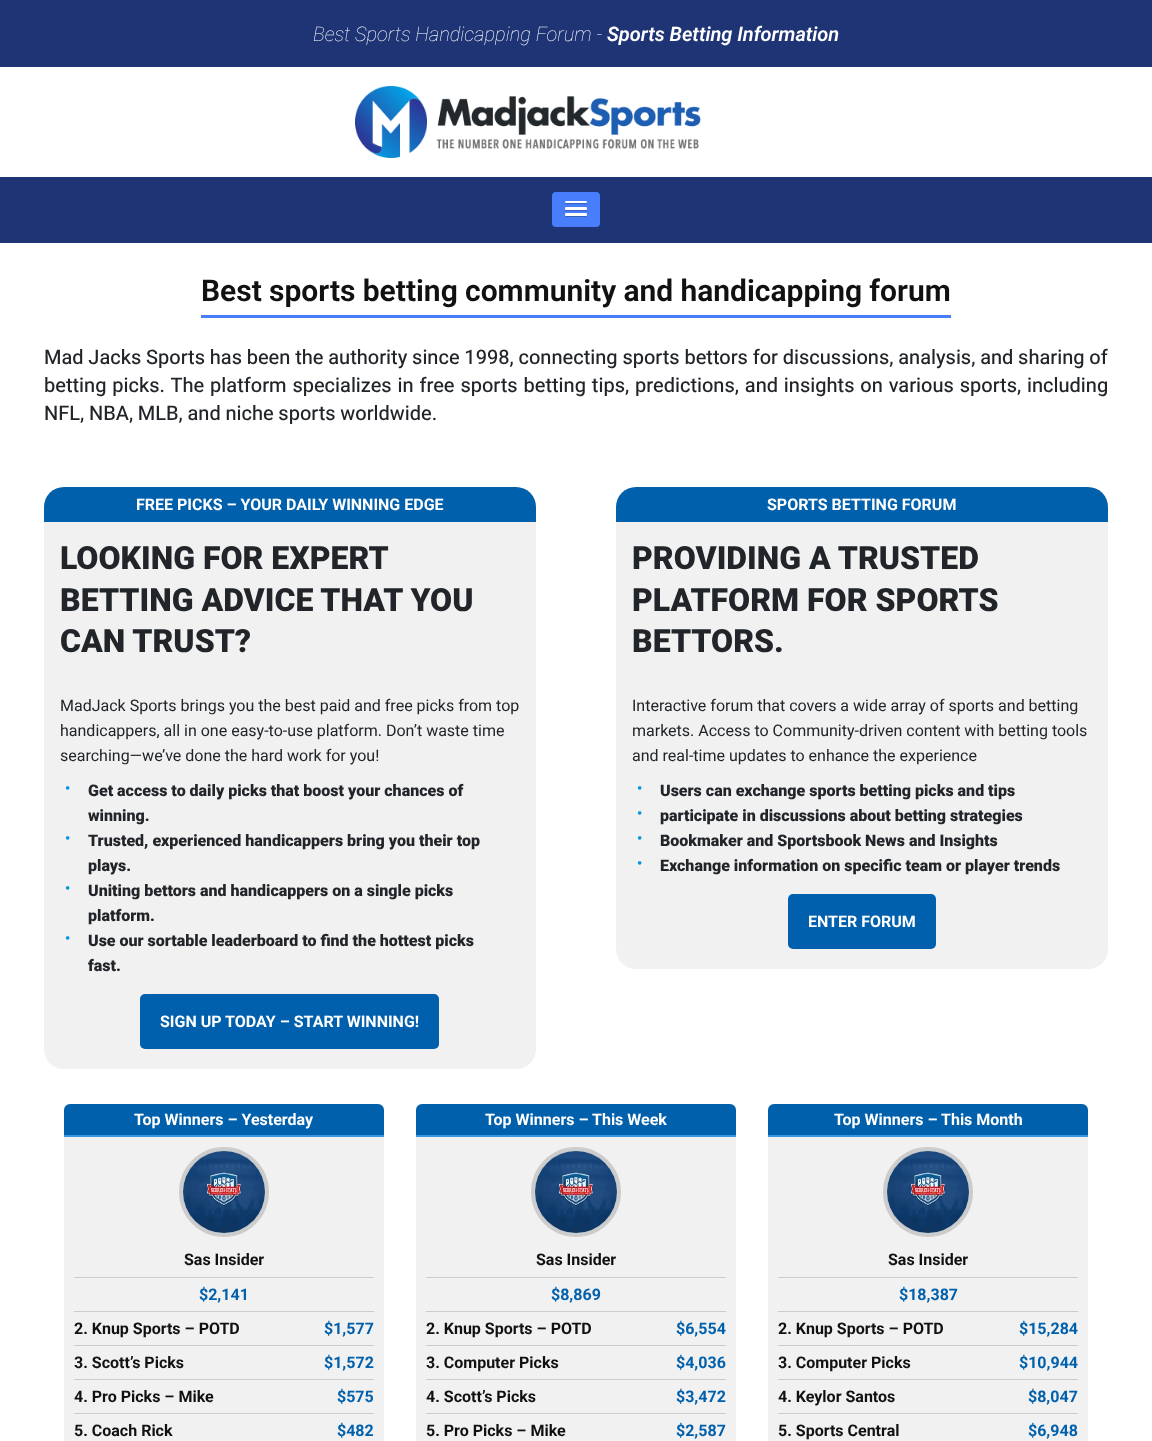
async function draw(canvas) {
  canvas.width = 1152;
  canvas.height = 1441;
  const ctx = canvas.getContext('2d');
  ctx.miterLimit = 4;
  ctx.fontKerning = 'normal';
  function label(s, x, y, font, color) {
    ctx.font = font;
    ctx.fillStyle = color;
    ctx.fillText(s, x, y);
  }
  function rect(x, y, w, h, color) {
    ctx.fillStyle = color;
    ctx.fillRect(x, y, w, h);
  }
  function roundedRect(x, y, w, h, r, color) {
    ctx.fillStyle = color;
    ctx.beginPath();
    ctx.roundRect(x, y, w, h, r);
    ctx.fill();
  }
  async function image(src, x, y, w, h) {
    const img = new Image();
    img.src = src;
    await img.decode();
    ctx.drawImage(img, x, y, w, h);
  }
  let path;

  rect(0, 0, 1152, 1441, '#fff');
  rect(0, 0, 1152, 243, '#1f3475');
  label('Best Sports Handicapping Forum -', 313, 41, 'italic 100 20px Roboto', '#fff');
  label('Sports Betting Information', 607, 41, 'italic 600 20px Roboto', '#fff');
  rect(0, 67, 1152, 110, '#fff');
  await image('assets/img1.png', 355, 86, 346, 72);
  roundedRect(552, 192, 48, 35, 4, '#487efc');
  ctx.fillStyle = '#365fbd';
  path = new Path2D('M565 202.5C564 204.5 567 204 569.5 204H582.5C585 204 588 204.5 587 202.5L586 203H566Z');
  ctx.fill(path);
  roundedRect(565, 201, 22, 2, 1, '#fff');
  ctx.fillStyle = '#365fbd';
  path = new Path2D('M565 209C565 212 566.5 211 569.5 211H582.5C585.5 211 587 212 587 209C587 209.5 586.5 210 586 210H566C565.5 210 565 209.5 565 209Z');
  ctx.fill(path);
  roundedRect(565, 207, 22, 3, 1, '#fff');
  ctx.fillStyle = '#365fbd';
  path = new Path2D('M565 215C565 218 566.5 217 569.5 217H582.5C585.5 217 587 218 587 215C587 215.5 586.5 216 586 216H566C565.5 216 565 215.5 565 215Z');
  ctx.fill(path);
  roundedRect(565, 213, 22, 3, 1, '#fff');
  rect(201, 315, 750, 3, '#487efc');
  ctx.wordSpacing = '-0.2px';
  label('Best sports betting community and handicapping forum', 201, 301, '600 30px Roboto', '#111');
  label('Mad Jacks Sports has been the authority since 1998, connecting sports bettors for discussions, analysis, and sharing of', 44, 364, '20px "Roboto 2"', '#212529');
  ctx.wordSpacing = '0.9px';
  label('betting picks. The platform specializes in free sports betting tips, predictions, and insights on various sports, including', 44, 392, '20px "Roboto 2"', '#212529');
  ctx.wordSpacing = '-0.25px';
  label('NFL, NBA, MLB, and niche sports worldwide.', 44, 420, '20px "Roboto 2"', '#212529');
  ctx.fillStyle = '#0160ac';
  ctx.beginPath();
  ctx.roundRect(44, 487, 492, 35, [20, 20, 0, 0]);
  ctx.fill();
  ctx.wordSpacing = '0px';
  label('FREE PICKS – YOUR DAILY WINNING EDGE', 136, 510, 'bold 16px Roboto', '#fff');
  ctx.fillStyle = '#f1f1f1';
  ctx.beginPath();
  ctx.roundRect(44, 522, 492, 547, [0, 0, 20, 20]);
  ctx.fill();
  label('LOOKING FOR EXPERT', 60, 569, '900 32px Roboto', '#212529');
  label('BETTING ADVICE THAT YOU', 60, 611, '900 32px Roboto', '#212529');
  label('CAN TRUST?', 60, 652, '900 32px Roboto', '#212529');
  label('MadJack Sports brings you the best paid and free picks from top', 60, 711, '16px Roboto', '#212529');
  label('handicappers, all in one easy-to-use platform. Don’t waste time', 60, 736, '16px Roboto', '#212529');
  label('searching—we’ve done the hard work for you!', 60, 761, '16px Roboto', '#212529');
  label('•', 65, 793, '900 14px Roboto', '#0693e3');
  label('Get access to daily picks that boost your chances of', 88, 796, '900 16px Roboto', '#212529');
  label('winning.', 88, 821, '900 16px Roboto', '#212529');
  label('•', 65, 843, '900 14px Roboto', '#0693e3');
  label('Trusted, experienced handicappers bring you their top', 88, 846, '900 16px Roboto', '#212529');
  label('plays.', 88, 871, '900 16px Roboto', '#212529');
  label('•', 65, 893, '900 14px Roboto', '#0693e3');
  label('Uniting bettors and handicappers on a single picks', 88, 896, '900 16px Roboto', '#212529');
  label('platform.', 88, 921, '900 16px Roboto', '#212529');
  label('•', 65, 943, '900 14px Roboto', '#0693e3');
  label('Use our sortable leaderboard to find the hottest picks', 88, 946, '900 16px Roboto', '#212529');
  label('fast.', 88, 971, '900 16px Roboto', '#212529');
  roundedRect(140, 994, 299, 55, 5, '#0160ad');
  label('SIGN UP TODAY – START WINNING!', 160, 1027, 'bold 16px Roboto', '#fff');
  ctx.fillStyle = '#0160ac';
  ctx.beginPath();
  ctx.roundRect(616, 487, 492, 35, [20, 20, 0, 0]);
  ctx.fill();
  label('SPORTS BETTING FORUM', 767, 510, 'bold 16px Roboto', '#fff');
  ctx.fillStyle = '#f1f1f1';
  ctx.beginPath();
  ctx.roundRect(616, 522, 492, 447, [0, 0, 20, 20]);
  ctx.fill();
  label('PROVIDING A TRUSTED', 632, 569, '900 32px Roboto', '#212529');
  label('PLATFORM FOR SPORTS', 632, 611, '900 32px Roboto', '#212529');
  label('BETTORS.', 632, 652, '900 32px Roboto', '#212529');
  label('Interactive forum that covers a wide array of sports and betting', 632, 711, '16px Roboto', '#212529');
  label('markets. Access to Community-driven content with betting tools', 632, 736, '16px Roboto', '#212529');
  label('and real-time updates to enhance the experience', 632, 761, '16px Roboto', '#212529');
  label('•', 637, 793, '900 14px Roboto', '#0693e3');
  label('Users can exchange sports betting picks and tips', 660, 796, '900 16px Roboto', '#212529');
  label('•', 637, 818, '900 14px Roboto', '#0693e3');
  label('participate in discussions about betting strategies', 660, 821, '900 16px Roboto', '#212529');
  label('•', 637, 843, '900 14px Roboto', '#0693e3');
  label('Bookmaker and Sportsbook News and Insights', 660, 846, '900 16px Roboto', '#212529');
  label('•', 637, 868, '900 14px Roboto', '#0693e3');
  label('Exchange information on specific team or player trends', 660, 871, '900 16px Roboto', '#212529');
  roundedRect(788, 894, 148, 55, 5, '#0160ad');
  label('ENTER FORUM', 808, 927, 'bold 16px Roboto', '#fff');
  roundedRect(64, 1104, 320, 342, 5, '#f1f1f1');
  ctx.fillStyle = '#0160ac';
  ctx.beginPath();
  ctx.roundRect(64, 1104, 320, 33, [6, 6, 0, 0]);
  ctx.fill();
  rect(64, 1135, 320, 2, '#3a96e0');
  label('Top Winners – Yesterday', 134, 1125, 'bold 16px Roboto', '#fff');
  ctx.beginPath();
  ctx.arc(224, 1192, 43, 0, 2 * Math.PI);
  ctx.strokeStyle = '#ccc';
  ctx.lineWidth = 4;
  ctx.stroke();
  await image('assets/img2.png', 183, 1151, 82, 82);
  label('Sas Insider', 184, 1265, 'bold 16px Roboto', '#111');
  rect(74, 1277, 300, 1, '#ccc');
  label('$2,141', 199, 1300, 'bold 16px Roboto', '#0160ac');
  rect(74, 1311, 300, 1, '#ccc');
  label('2. Knup Sports – POTD', 74, 1334, 'bold 16px Roboto', '#111');
  label('$1,577', 324, 1334, 'bold 16px Roboto', '#0160ac');
  rect(74, 1345, 300, 1, '#ccc');
  label('3. Scott’s Picks', 74, 1368, 'bold 16px Roboto', '#111');
  label('$1,572', 324, 1368, 'bold 16px Roboto', '#0160ac');
  rect(74, 1379, 300, 1, '#ccc');
  label('4. Pro Picks – Mike', 74, 1402, 'bold 16px Roboto', '#111');
  label('$575', 337, 1402, 'bold 16px Roboto', '#0160ac');
  rect(74, 1413, 300, 1, '#ccc');
  label('5. Coach Rick', 74, 1436, 'bold 16px Roboto', '#111');
  label('$482', 337, 1436, 'bold 16px Roboto', '#0160ac');
  roundedRect(416, 1104, 320, 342, 5, '#f1f1f1');
  ctx.fillStyle = '#0160ac';
  ctx.beginPath();
  ctx.roundRect(416, 1104, 320, 33, [6, 6, 0, 0]);
  ctx.fill();
  rect(416, 1135, 320, 2, '#3a96e0');
  label('Top Winners –', 485, 1125, 'bold 16px Roboto', '#fff');
  label('This Week', 592, 1125, 'bold 16px Roboto', '#fff');
  ctx.beginPath();
  ctx.arc(576, 1192, 43, 0, 2 * Math.PI);
  ctx.stroke();
  await image('assets/img3.png', 535, 1151, 82, 82);
  label('Sas Insider', 536, 1265, 'bold 16px Roboto', '#111');
  rect(426, 1277, 300, 1, '#ccc');
  label('$8,869', 551, 1300, 'bold 16px Roboto', '#0160ac');
  rect(426, 1311, 300, 1, '#ccc');
  label('2. Knup Sports – POTD', 426, 1334, 'bold 16px Roboto', '#111');
  label('$6,554', 676, 1334, 'bold 16px Roboto', '#0160ac');
  rect(426, 1345, 300, 1, '#ccc');
  label('3. Computer Picks', 426, 1368, 'bold 16px Roboto', '#111');
  label('$4,036', 676, 1368, 'bold 16px Roboto', '#0160ac');
  rect(426, 1379, 300, 1, '#ccc');
  label('4. Scott’s Picks', 426, 1402, 'bold 16px Roboto', '#111');
  label('$3,472', 676, 1402, 'bold 16px Roboto', '#0160ac');
  rect(426, 1413, 300, 1, '#ccc');
  label('5. Pro Picks – Mike', 426, 1436, 'bold 16px Roboto', '#111');
  label('$2,587', 676, 1436, 'bold 16px Roboto', '#0160ac');
  roundedRect(768, 1104, 320, 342, 5, '#f1f1f1');
  ctx.fillStyle = '#0160ac';
  ctx.beginPath();
  ctx.roundRect(768, 1104, 320, 33, [6, 6, 0, 0]);
  ctx.fill();
  rect(768, 1135, 320, 2, '#3a96e0');
  label('Top Winners –', 834, 1125, 'bold 16px Roboto', '#fff');
  label('This Month', 941, 1125, 'bold 16px Roboto', '#fff');
  ctx.beginPath();
  ctx.arc(928, 1192, 43, 0, 2 * Math.PI);
  ctx.stroke();
  await image('assets/img4.png', 887, 1151, 82, 82);
  label('Sas Insider', 888, 1265, 'bold 16px Roboto', '#111');
  rect(778, 1277, 300, 1, '#ccc');
  label('$18,387', 899, 1300, 'bold 16px Roboto', '#0160ac');
  rect(778, 1311, 300, 1, '#ccc');
  label('2. Knup Sports – POTD', 778, 1334, 'bold 16px Roboto', '#111');
  label('$15,284', 1019, 1334, 'bold 16px Roboto', '#0160ac');
  rect(778, 1345, 300, 1, '#ccc');
  label('3. Computer Picks', 778, 1368, 'bold 16px Roboto', '#111');
  label('$10,944', 1019, 1368, 'bold 16px Roboto', '#0160ac');
  rect(778, 1379, 300, 1, '#ccc');
  label('4. Keylor Santos', 778, 1402, 'bold 16px Roboto', '#111');
  label('$8,047', 1028, 1402, 'bold 16px Roboto', '#0160ac');
  rect(778, 1413, 300, 1, '#ccc');
  label('5. Sports Central', 778, 1436, 'bold 16px Roboto', '#111');
  label('$6,948', 1028, 1436, 'bold 16px Roboto', '#0160ac');
}

draw(document.querySelector('canvas'));
